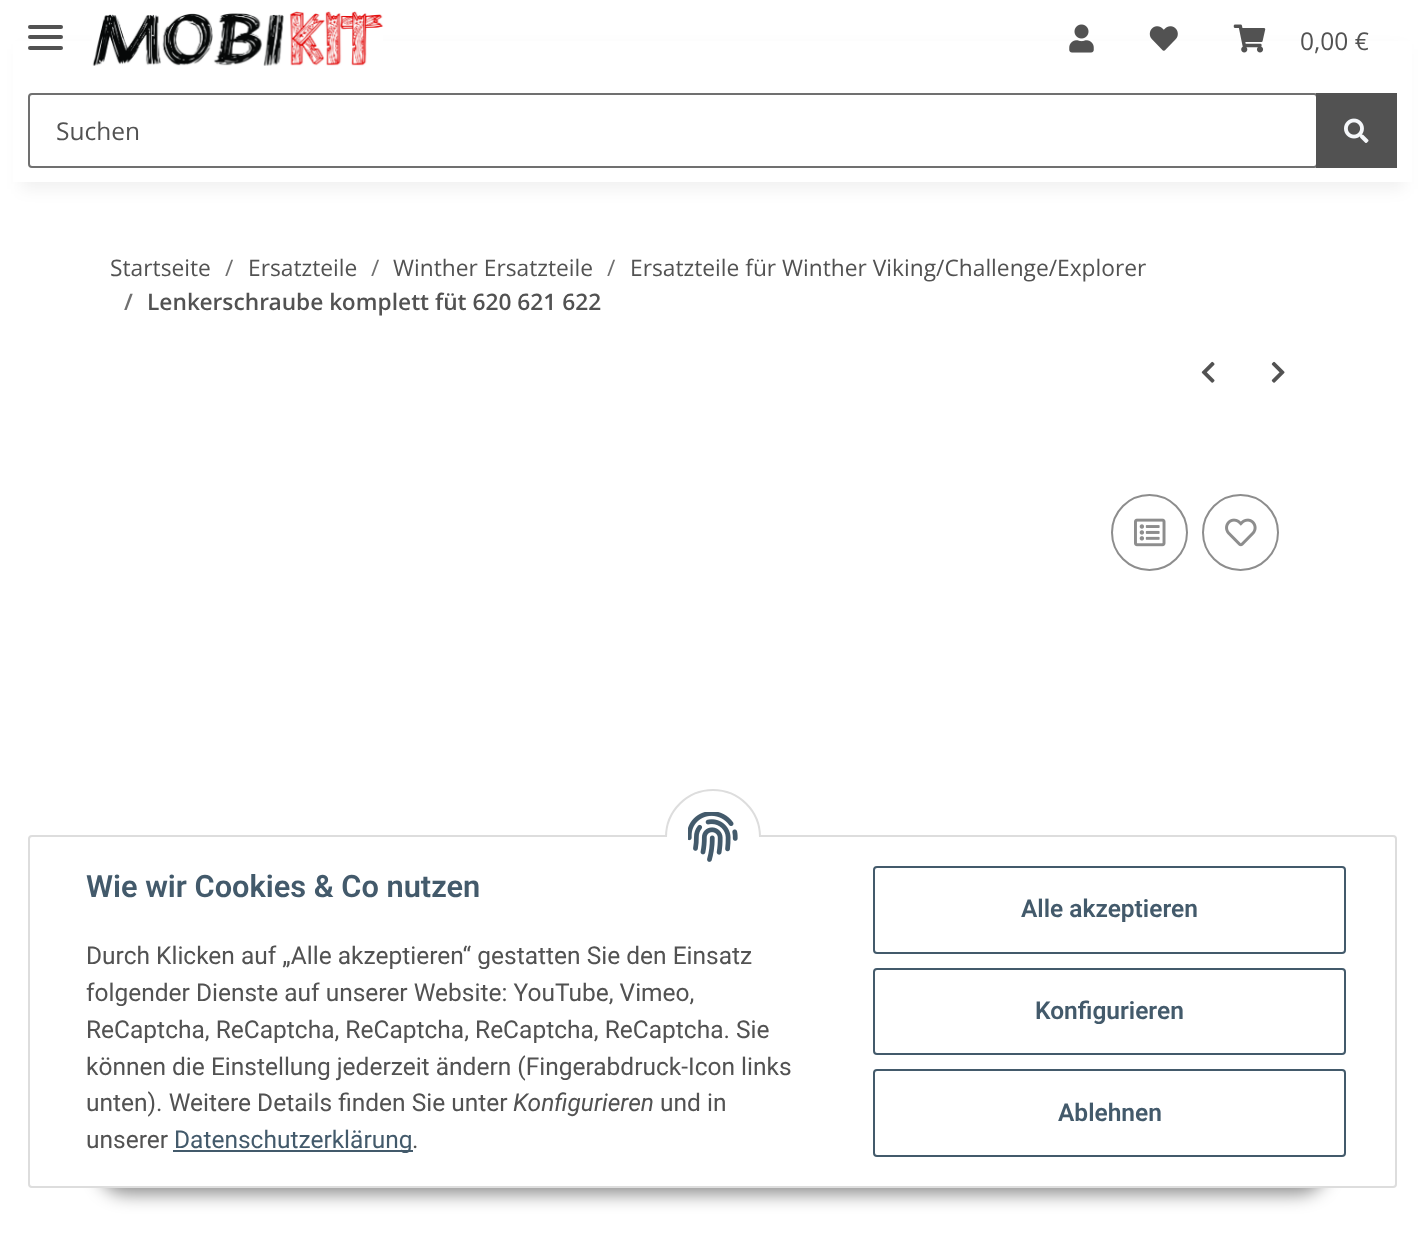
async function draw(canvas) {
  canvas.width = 1424;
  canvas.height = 1244;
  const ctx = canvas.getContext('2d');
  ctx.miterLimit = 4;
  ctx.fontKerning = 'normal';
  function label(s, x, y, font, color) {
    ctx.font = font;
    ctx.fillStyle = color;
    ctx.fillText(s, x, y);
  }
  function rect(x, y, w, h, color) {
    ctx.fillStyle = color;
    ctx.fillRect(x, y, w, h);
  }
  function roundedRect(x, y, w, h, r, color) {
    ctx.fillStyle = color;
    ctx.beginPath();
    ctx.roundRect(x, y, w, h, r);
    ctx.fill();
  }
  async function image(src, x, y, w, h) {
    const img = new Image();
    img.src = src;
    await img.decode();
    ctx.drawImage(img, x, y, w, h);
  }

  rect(0, 0, 1424, 1244, '#fff');
  ctx.fillStyle = '#0000000f';
  ctx.filter = 'blur(8px)';
  ctx.beginPath();
  ctx.rect(21, 49, 1383, 140);
  ctx.fill();
  ctx.filter = 'none';
  rect(13, 41, 1399, 141, '#fff');
  roundedRect(28, 35, 35, 4, 2, '#525252');
  roundedRect(28, 25, 35, 4, 2, '#525252');
  roundedRect(28, 46, 35, 4, 2, '#525252');
  await image('assets/img1.png', 92, 11, 292, 55);
  await image('assets/img2.png', 1069, 24, 25, 29);
  await image('assets/img3.png', 1149, 26, 29, 25);
  await image('assets/img4.png', 1233, 24, 33, 29);
  label('0,00 €', 1300, 50, '24.5px Open Sans', '#525252');
  ctx.beginPath();
  ctx.roundRect(29, 94, 1288, 73, 3);
  ctx.strokeStyle = '#707070';
  ctx.lineWidth = 2;
  ctx.stroke();
  label('Suchen', 56, 140, '24.5px Open Sans', '#525252');
  rect(1316, 93, 81, 75, '#525252');
  await image('assets/img5.png', 1344, 118, 25, 25);
  label('Startseite', 110, 276, '22.75px Open Sans', '#525252');
  label('/', 225, 276, '22.75px Open Sans', '#707070');
  label('Ersatzteile', 248, 276, '22.75px Open Sans', '#525252');
  label('/', 371, 276, '22.75px Open Sans', '#707070');
  label('Winther Ersatzteile', 393, 276, '22.75px Open Sans', '#525252');
  label('/', 607, 276, '22.75px Open Sans', '#707070');
  label('Ersatzteile für Winther Viking/Challenge/Explorer', 630, 276, '22.75px Open Sans', '#525252');
  label('/', 124, 310, '600 22.75px Open Sans', '#707070');
  label('Lenkerschraube komplett füt 620 621 622', 147, 310, '600 22.75px Open Sans', '#525252');
  await image('assets/img6.png', 1201, 361, 14, 22);
  await image('assets/img7.png', 1271, 361, 14, 22);
  ctx.beginPath();
  ctx.arc(1149.5, 532.5, 37.5, 0, 2 * Math.PI);
  ctx.strokeStyle = '#8d8d8d';
  ctx.stroke();
  await image('assets/img8.png', 1134, 518, 32, 29);
  ctx.beginPath();
  ctx.arc(1240.5, 532.5, 37.5, 0, 2 * Math.PI);
  ctx.stroke();
  await image('assets/img9.png', 1225, 518, 32, 29);
  ctx.fillStyle = '#00000073';
  ctx.filter = 'blur(9px)';
  ctx.beginPath();
  ctx.roundRect(98, 1138, 1229, 56, 28);
  ctx.fill();
  ctx.filter = 'none';
  ctx.fillStyle = '#fff';
  ctx.beginPath();
  ctx.roundRect(29, 836, 1367, 351, 3);
  ctx.fill();
  ctx.strokeStyle = '#ddd';
  ctx.stroke();
  ctx.beginPath();
  ctx.roundRect(666, 790, 94, 95, 47);
  ctx.fill();
  ctx.stroke();
  rect(665, 837, 96, 49, '#fff');
  await image('assets/img10.png', 688, 812, 50, 50);
  label('Wie wir Cookies & Co nutzen', 86, 897, '600 30.75px Roboto', '#435a6b');
  label('Durch Klicken auf „Alle akzeptieren“ gestatten Sie den Einsatz', 86, 964, '24.5px Roboto', '#525252');
  label('folgender Dienste auf unserer Website: YouTube, Vimeo,', 86, 1001, '24.5px Roboto', '#525252');
  label('ReCaptcha, ReCaptcha, ReCaptcha, ReCaptcha, ReCaptcha. Sie', 86, 1038, '24.5px Roboto', '#525252');
  label('können die Einstellung jederzeit ändern (Fingerabdruck-Icon links', 86, 1075, '24.5px Roboto', '#525252');
  label('unten). Weitere Details finden Sie unter', 86, 1111, '24.5px Roboto', '#525252');
  label('Konfigurieren', 513, 1111, 'italic 24.5px Roboto', '#525252');
  label('und in', 660, 1111, '24.5px Roboto', '#525252');
  label('unserer', 86, 1148, '24.5px Roboto', '#525252');
  rect(173, 1150, 240, 2, '#435a6b');
  label('Datenschutzerklärung', 174, 1148, '24.5px Roboto', '#435a6b');
  label('.', 412, 1148, '24.5px Roboto', '#525252');
  ctx.beginPath();
  ctx.roundRect(874, 867, 471, 86, 3);
  ctx.strokeStyle = '#435a6b';
  ctx.stroke();
  label('Alle akzeptieren', 1021, 917, '600 24.5px Roboto', '#435a6b');
  ctx.beginPath();
  ctx.roundRect(874, 969, 471, 85, 3);
  ctx.stroke();
  label('Konfigurieren', 1035, 1019, '600 24.5px Roboto', '#435a6b');
  ctx.beginPath();
  ctx.roundRect(874, 1070, 471, 86, 3);
  ctx.stroke();
  label('Ablehnen', 1058, 1121, '600 24.5px Roboto', '#435a6b');
}

draw(document.querySelector('canvas'));
